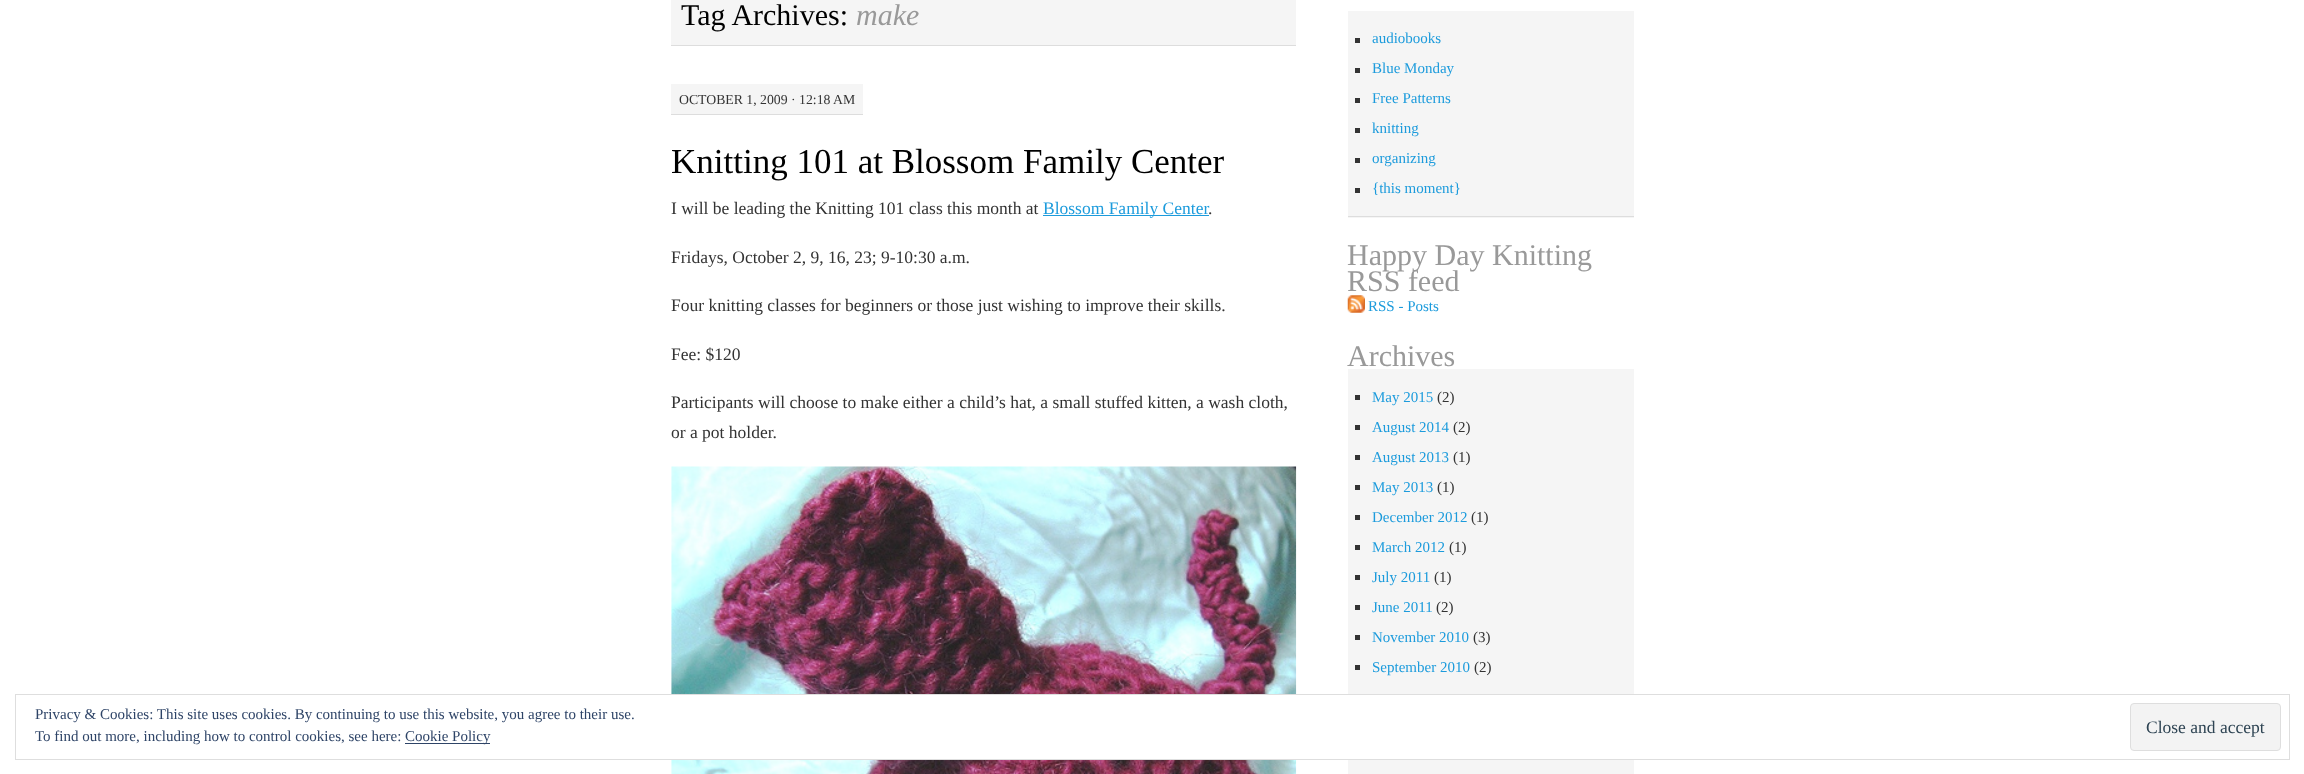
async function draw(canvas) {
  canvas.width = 2304;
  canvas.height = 774;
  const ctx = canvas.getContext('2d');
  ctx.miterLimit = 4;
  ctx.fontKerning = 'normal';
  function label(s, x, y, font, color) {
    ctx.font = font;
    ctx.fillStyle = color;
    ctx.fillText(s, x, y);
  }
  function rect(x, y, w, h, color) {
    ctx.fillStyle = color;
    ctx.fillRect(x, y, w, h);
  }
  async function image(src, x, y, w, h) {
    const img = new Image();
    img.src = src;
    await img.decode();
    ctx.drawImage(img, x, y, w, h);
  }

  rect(0, 0, 2304, 774, '#fff');
  rect(671, 0, 625, 45, '#f5f5f5');
  rect(671, 45, 625, 1, '#ddd');
  label('Tag Archives:', 681, 25, '30px Liberation Serif', '#000');
  label('make', 856, 25, 'italic 30px Liberation Serif', '#999');
  rect(671, 84, 192, 30, '#f5f5f5');
  rect(671, 114, 192, 1, '#ddd');
  label('OCTOBER 1, 2009 · 12:18 AM', 679, 104, '13.75px Liberation Serif', '#333');
  label('Knitting 101 at Blossom Family Center', 671, 173, '35px Liberation Serif', '#000');
  label('I will be leading the Knitting 101 class this month at', 671, 214, '17.5px Liberation Serif', '#333');
  rect(1043, 215, 166, 1, '#1c9bdc');
  label('Blossom Family Center', 1043, 214, '17.5px Liberation Serif', '#1c9bdc');
  label('.', 1208, 214, '17.5px Liberation Serif', '#333');
  label('Fridays, October 2, 9, 16, 23; 9-10:30 a.m.', 671, 263, '17.5px Liberation Serif', '#333');
  label('Four knitting classes for beginners or those just wishing to improve their skills.', 671, 311, '17.5px Liberation Serif', '#333');
  label('Fee: $120', 671, 360, '17.5px Liberation Serif', '#333');
  label('Participants will choose to make either a child’s hat, a small stuffed kitten, a wash cloth,', 671, 408, '17.5px Liberation Serif', '#333');
  label('or a pot holder.', 671, 438, '17.5px Liberation Serif', '#333');
  await image('assets/img1.png', 671, 466, 626, 308);
  rect(1348, 11, 286, 207, '#f5f5f5');
  rect(1348, 216, 286, 1, '#ddd');
  rect(1355, 38, 5, 5, '#333');
  label('audiobooks', 1372, 43, '15px Liberation Serif', '#1c9bdc');
  rect(1355, 68, 5, 5, '#333');
  label('Blue Monday', 1372, 73, '15px Liberation Serif', '#1c9bdc');
  rect(1355, 98, 5, 5, '#333');
  label('Free Patterns', 1372, 103, '15px Liberation Serif', '#1c9bdc');
  rect(1355, 128, 5, 5, '#333');
  label('knitting', 1372, 133, '15px Liberation Serif', '#1c9bdc');
  rect(1355, 158, 5, 5, '#333');
  label('organizing', 1372, 163, '15px Liberation Serif', '#1c9bdc');
  rect(1355, 188, 5, 5, '#333');
  label('{this moment}', 1372, 193, '15px Liberation Serif', '#1c9bdc');
  label('Happy Day Knitting', 1347, 265, '30px Liberation Serif', '#999');
  label('RSS feed', 1347, 291, '30px Liberation Serif', '#999');
  await image('assets/img2.png', 1347, 295, 18, 18);
  label('RSS - Posts', 1368, 311, '15px Liberation Serif', '#1c9bdc');
  label('Archives', 1347, 366, '30px Liberation Serif', '#999');
  rect(1348, 369, 286, 405, '#f5f5f5');
  rect(1355, 395, 5, 5, '#333');
  label('May 2015', 1372, 402, '15px Liberation Serif', '#1c9bdc');
  label('(2)', 1437, 402, '15px Liberation Serif', '#333');
  rect(1355, 425, 5, 5, '#333');
  label('August 2014', 1372, 432, '15px Liberation Serif', '#1c9bdc');
  label('(2)', 1453, 432, '15px Liberation Serif', '#333');
  rect(1355, 455, 5, 5, '#333');
  label('August 2013', 1372, 462, '15px Liberation Serif', '#1c9bdc');
  label('(1)', 1453, 462, '15px Liberation Serif', '#333');
  rect(1355, 485, 5, 5, '#333');
  label('May 2013', 1372, 492, '15px Liberation Serif', '#1c9bdc');
  label('(1)', 1437, 492, '15px Liberation Serif', '#333');
  rect(1355, 515, 5, 5, '#333');
  label('December 2012', 1372, 522, '15px Liberation Serif', '#1c9bdc');
  label('(1)', 1471, 522, '15px Liberation Serif', '#333');
  rect(1355, 545, 5, 5, '#333');
  label('March 2012', 1372, 552, '15px Liberation Serif', '#1c9bdc');
  label('(1)', 1449, 552, '15px Liberation Serif', '#333');
  rect(1355, 575, 5, 5, '#333');
  label('July 2011', 1372, 582, '15px Liberation Serif', '#1c9bdc');
  label('(1)', 1434, 582, '15px Liberation Serif', '#333');
  rect(1355, 605, 5, 5, '#333');
  label('June 2011', 1372, 612, '15px Liberation Serif', '#1c9bdc');
  label('(2)', 1436, 612, '15px Liberation Serif', '#333');
  rect(1355, 635, 5, 5, '#333');
  label('November 2010', 1372, 642, '15px Liberation Serif', '#1c9bdc');
  label('(3)', 1473, 642, '15px Liberation Serif', '#333');
  rect(1355, 665, 5, 5, '#333');
  label('September 2010', 1372, 672, '15px Liberation Serif', '#1c9bdc');
  label('(2)', 1474, 672, '15px Liberation Serif', '#333');
  rect(671, 695, 963, 64, '#fff');
  ctx.strokeStyle = '#dedede';
  ctx.strokeRect(15.5, 694.5, 2274, 65);
  label('Privacy & Cookies: This site uses cookies. By continuing to use this website, you agree to their use.', 35, 719, '15px Liberation Serif', '#2e4467');
  label('To find out more, including how to control cookies, see here:', 35, 741, '15px Liberation Serif', '#2e4467');
  rect(405, 743, 85, 1, '#2e4467');
  label('Cookie Policy', 405, 741, '15px Liberation Serif', '#2e4467');
  ctx.fillStyle = '#f3f3f3';
  ctx.beginPath();
  ctx.roundRect(2130.5, 703.5, 150, 47, 3.5);
  ctx.fill();
  ctx.stroke();
  label('Close and accept', 2146, 733, '17.5px Liberation Serif', '#2e4453');
}

draw(document.querySelector('canvas'));
